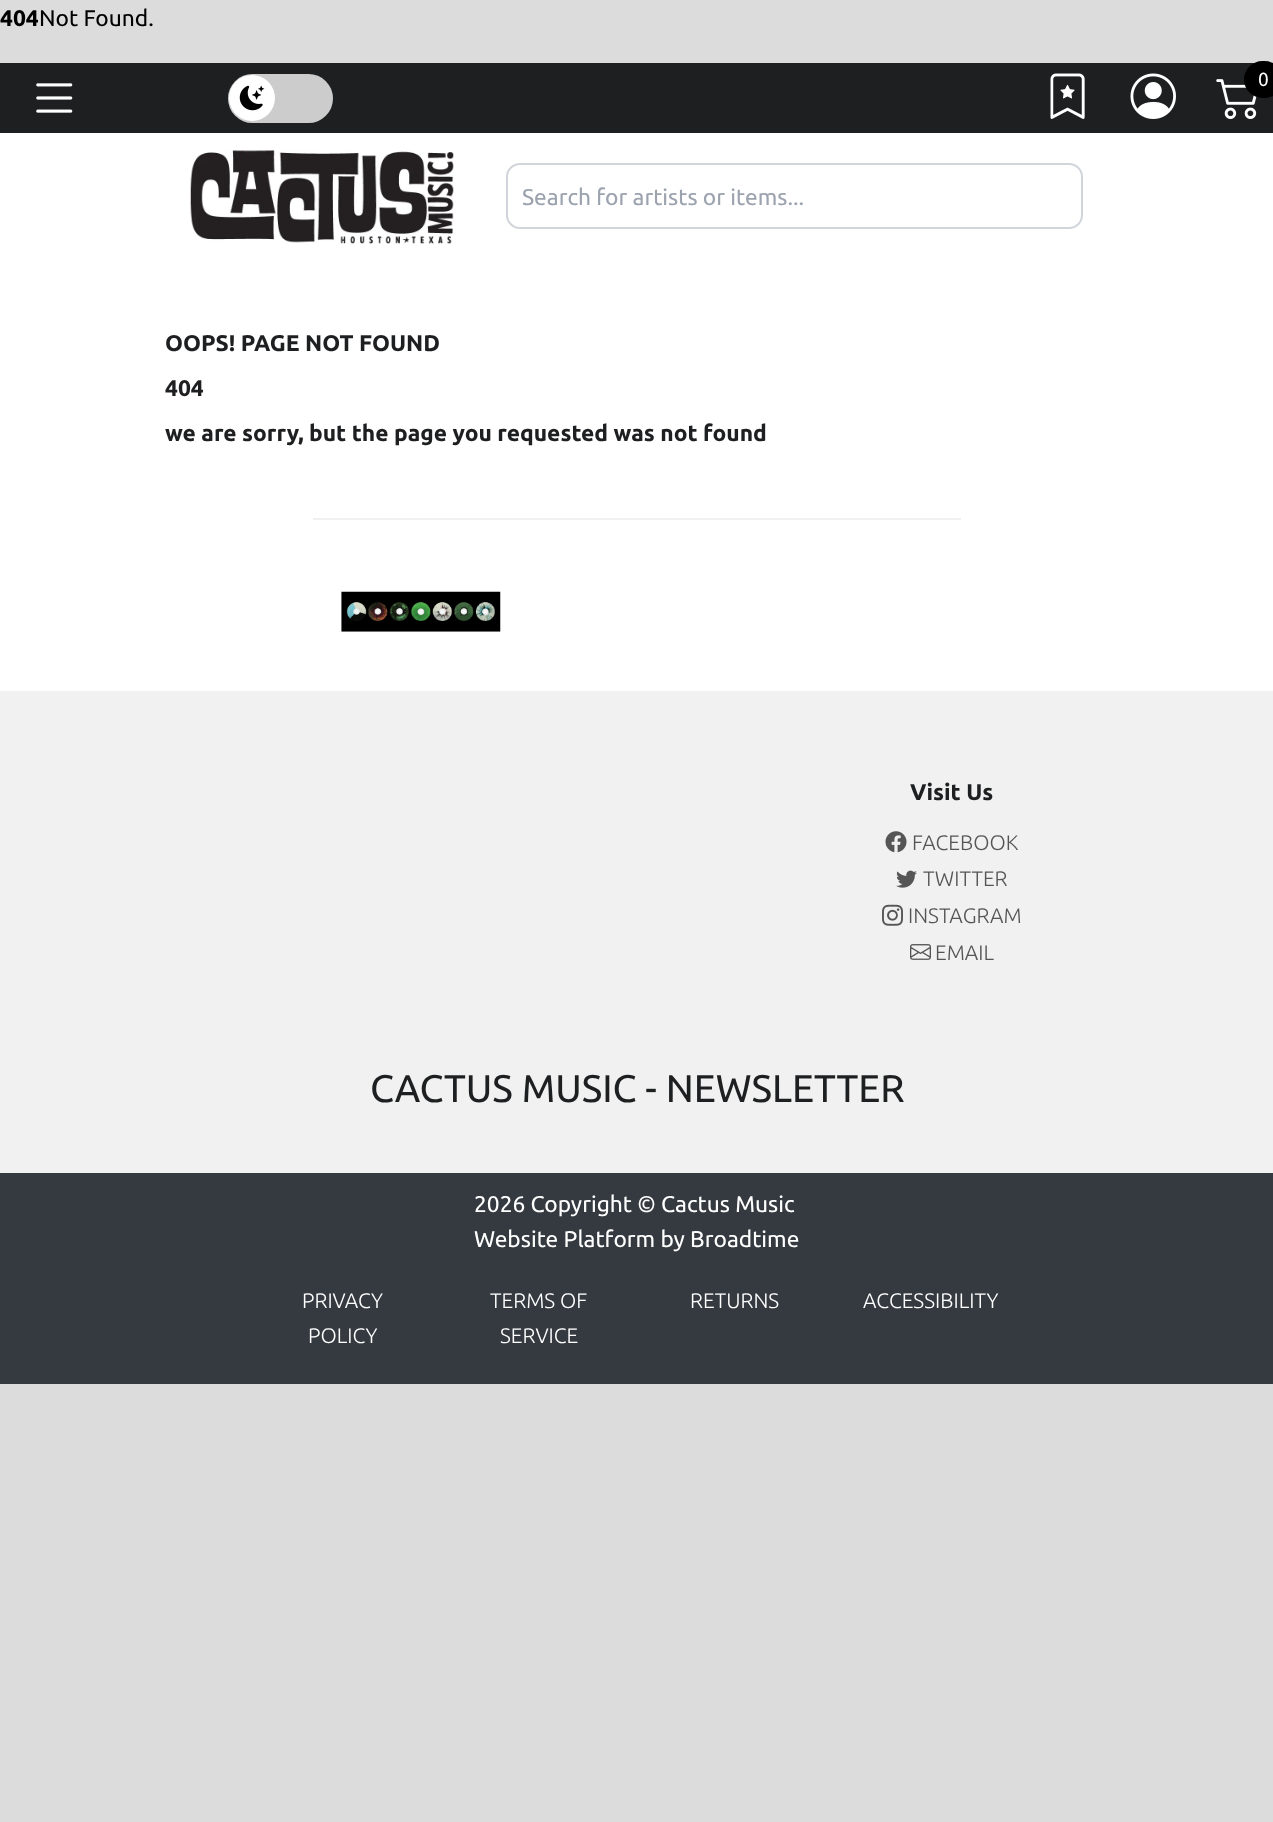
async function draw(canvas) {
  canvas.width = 1273;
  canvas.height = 1822;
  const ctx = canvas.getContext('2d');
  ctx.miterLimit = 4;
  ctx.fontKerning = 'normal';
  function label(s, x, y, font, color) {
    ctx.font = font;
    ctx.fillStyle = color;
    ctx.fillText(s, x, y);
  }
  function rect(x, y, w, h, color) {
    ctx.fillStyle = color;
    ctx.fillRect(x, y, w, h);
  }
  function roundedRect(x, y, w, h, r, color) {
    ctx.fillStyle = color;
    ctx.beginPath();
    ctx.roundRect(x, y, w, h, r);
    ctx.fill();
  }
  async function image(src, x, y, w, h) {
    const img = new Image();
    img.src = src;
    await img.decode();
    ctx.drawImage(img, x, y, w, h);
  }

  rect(0, 0, 1273, 1822, '#dcdcdc');
  label('404', 0, 26, 'bold 22.75px Ubuntu', '#000');
  label('Not Found.', 39, 26, '22.75px Ubuntu', '#000');
  rect(0, 133, 1273, 558, '#fff');
  rect(0, 63, 1273, 70, '#1d1f20');
  await image('assets/img1.png', 36, 83, 37, 30);
  roundedRect(228, 74, 105, 49, 24.5, '#ccc');
  ctx.fillStyle = '#fff';
  ctx.beginPath();
  ctx.arc(252, 98, 23, 0, 2 * Math.PI);
  ctx.fill();
  await image('assets/img2.png', 239, 85, 26, 26);
  await image('assets/img3.png', 1050, 73, 35, 46);
  await image('assets/img4.png', 1130, 73, 46, 46);
  await image('assets/img5.png', 1216, 79, 41, 40);
  roundedRect(1244, 61, 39, 37, 18.5, '#000');
  label('0', 1258, 86, '19px Ubuntu', '#fff');
  await image('assets/img6.png', 190, 150, 264, 94);
  ctx.beginPath();
  ctx.roundRect(507, 164, 575, 64, 13);
  ctx.strokeStyle = '#d1d5db';
  ctx.lineWidth = 2;
  ctx.stroke();
  label('Search for artists or items...', 522, 205, '22.75px Ubuntu', '#9ca3af');
  label('OOPS! PAGE NOT FOUND', 165, 351, 'bold 22.75px Ubuntu', '#1d1f20');
  label('404', 165, 396, 'bold 22.75px Ubuntu', '#1d1f20');
  label('we are sorry, but the page you requested was not found', 165, 441, 'bold 22.75px Ubuntu', '#1d1f20');
  rect(313, 518, 648, 2, '#f1f1f1');
  await image('assets/img7.png', 341, 591, 160, 41);
  rect(0, 691, 1273, 482, '#f1f1f1');
  label('Visit Us', 910, 800, 'bold 22.75px Ubuntu', '#1d1f20');
  await image('assets/img8.png', 885, 831, 22, 22);
  label('FACEBOOK', 912, 850, '300 21px Ubuntu', '#555');
  await image('assets/img9.png', 896, 870, 21, 18);
  label('TWITTER', 923, 886, '300 21px Ubuntu', '#555');
  await image('assets/img10.png', 882, 904, 21, 22);
  label('INSTAGRAM', 908, 923, '300 21px Ubuntu', '#555');
  await image('assets/img11.png', 910, 944, 21, 16);
  label('EMAIL', 935, 960, '300 21px Ubuntu', '#555');
  label('CACTUS MUSIC - NEWSLETTER', 370, 1102, '38.5px Ubuntu', '#1d1f20');
  rect(0, 1173, 1273, 211, '#343a40');
  label('2026 Copyright © Cactus Music', 474, 1212, '22.75px Ubuntu', '#fff');
  label('Website Platform by Broadtime', 474, 1247, '22.75px Ubuntu', '#fff');
  label('PRIVACY', 302, 1308, '300 21px Ubuntu', '#fff');
  label('POLICY', 308, 1343, '300 21px Ubuntu', '#fff');
  label('TERMS OF', 490, 1308, '300 21px Ubuntu', '#fff');
  label('SERVICE', 500, 1343, '300 21px Ubuntu', '#fff');
  label('RETURNS', 690, 1308, '300 21px Ubuntu', '#fff');
  label('ACCESSIBILITY', 863, 1308, '300 21px Ubuntu', '#fff');
}

draw(document.querySelector('canvas'));
